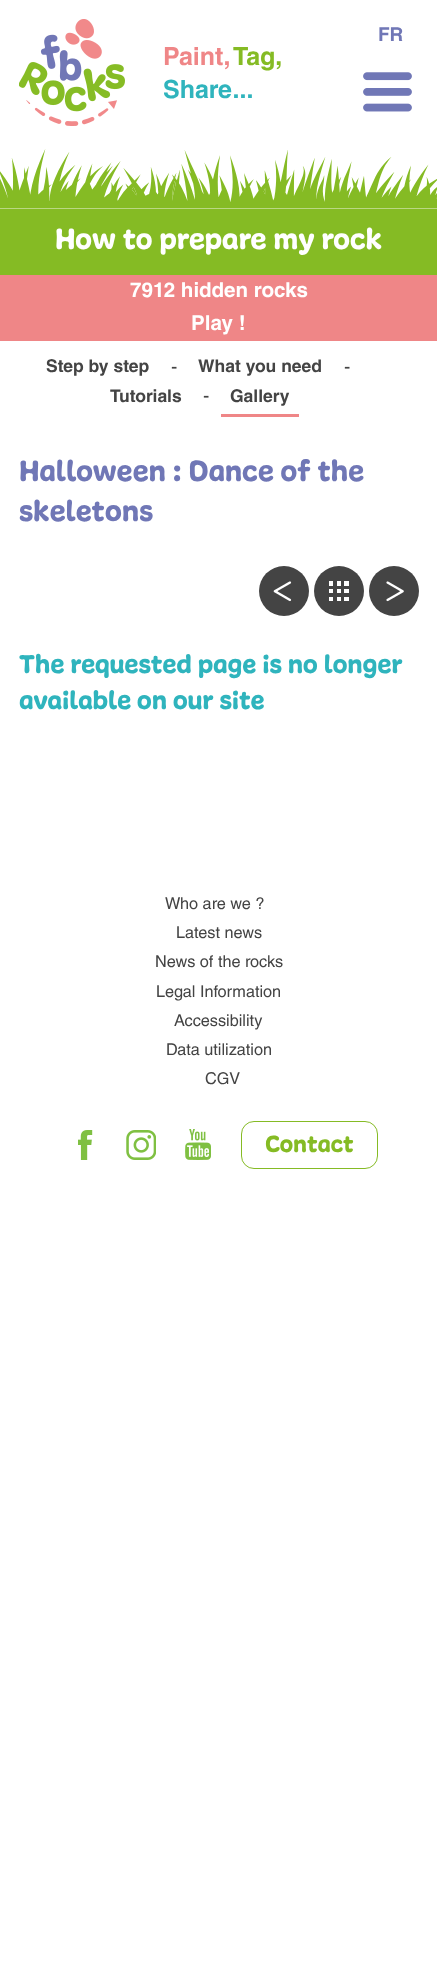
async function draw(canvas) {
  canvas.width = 437;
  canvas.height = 1969;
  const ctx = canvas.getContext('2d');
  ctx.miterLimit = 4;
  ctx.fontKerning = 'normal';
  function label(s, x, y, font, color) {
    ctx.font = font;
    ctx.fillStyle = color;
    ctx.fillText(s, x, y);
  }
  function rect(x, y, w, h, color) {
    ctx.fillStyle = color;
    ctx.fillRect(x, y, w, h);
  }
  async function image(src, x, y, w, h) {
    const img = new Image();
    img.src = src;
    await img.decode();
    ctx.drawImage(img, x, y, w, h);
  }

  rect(0, 0, 437, 1969, '#fff');
  await image('assets/img1.png', 19, 19, 106, 107);
  label('FR', 378, 41, 'bold 19px Helvetica', '#7077b6');
  label('Paint,', 163, 65, 'bold 25px Helvetica', '#ef8687');
  label('Tag,', 233, 65, 'bold 25px Helvetica', '#85bb24');
  label('Share...', 163, 98, 'bold 25px Helvetica', '#2fb4bd');
  rect(363, 72, 49, 40, '#7077b6');
  await image('assets/img2.png', 363, 71, 50, 42);
  rect(0, 209, 437, 66, '#85bb24');
  await image('assets/img3.png', 0, 149, 437, 60);
  label('How to prepare my rock', 55, 249, '31.25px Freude', '#fff');
  rect(0, 275, 437, 66, '#ef8687');
  label('7912 hidden rocks', 130, 297, 'bold 20.6px Helvetica', '#fff');
  label('Play !', 191, 330, 'bold 20.6px Helvetica', '#fff');
  label('Step by step', 46, 372, 'bold 17.5px Helvetica', '#444');
  label('-', 171, 373, '19px Helvetica', '#444');
  label('What you need', 198, 372, 'bold 17.5px Helvetica', '#444');
  label('-', 344, 373, '19px Helvetica', '#444');
  label('Tutorials', 110, 402, 'bold 17.5px Helvetica', '#444');
  label('-', 203, 402, '19px Helvetica', '#444');
  rect(221, 414, 78, 3, '#ef8687');
  label('Gallery', 230, 402, 'bold 17.5px Helvetica', '#444');
  label('Halloween : Dance of the', 19, 481, '31.25px Freude', '#7077b6');
  label('skeletons', 19, 521, '31.25px Freude', '#7077b6');
  ctx.fillStyle = '#444';
  ctx.beginPath();
  ctx.arc(284, 591, 25, 0, 2 * Math.PI);
  ctx.fill();
  await image('assets/img4.png', 273, 581, 19, 21);
  ctx.beginPath();
  ctx.arc(339, 591, 25, 0, 2 * Math.PI);
  ctx.fill();
  await image('assets/img5.png', 329, 581, 20, 20);
  ctx.beginPath();
  ctx.arc(394, 591, 25, 0, 2 * Math.PI);
  ctx.fill();
  await image('assets/img6.png', 386, 581, 18, 21);
  label('The requested page is no longer', 19, 673, '27.5px Freude', '#2fb4bd');
  label('available on our site', 19, 709, '27.5px Freude', '#2fb4bd');
  label('Who are we ?', 165, 909, '16.25px Helvetica', '#444');
  label('Latest news', 176, 938, '16.25px Helvetica', '#444');
  label('News of the rocks', 155, 967, '16.25px Helvetica', '#444');
  label('Legal Information', 156, 997, '16.25px Helvetica', '#444');
  label('Accessibility', 174, 1026, '16.25px Helvetica', '#444');
  label('Data utilization', 166, 1055, '16.25px Helvetica', '#444');
  label('CGV', 205, 1084, '16.25px Helvetica', '#444');
  await image('assets/img7.png', 78, 1130, 15, 30);
  await image('assets/img8.png', 126, 1130, 30, 30);
  await image('assets/img9.png', 185, 1129, 26, 31);
  ctx.beginPath();
  ctx.roundRect(241.5, 1121.5, 136, 47, 12.5);
  ctx.strokeStyle = '#85bb24';
  ctx.stroke();
  label('Contact', 265, 1152, '25px Freude', '#85bb24');
}

draw(document.querySelector('canvas'));
